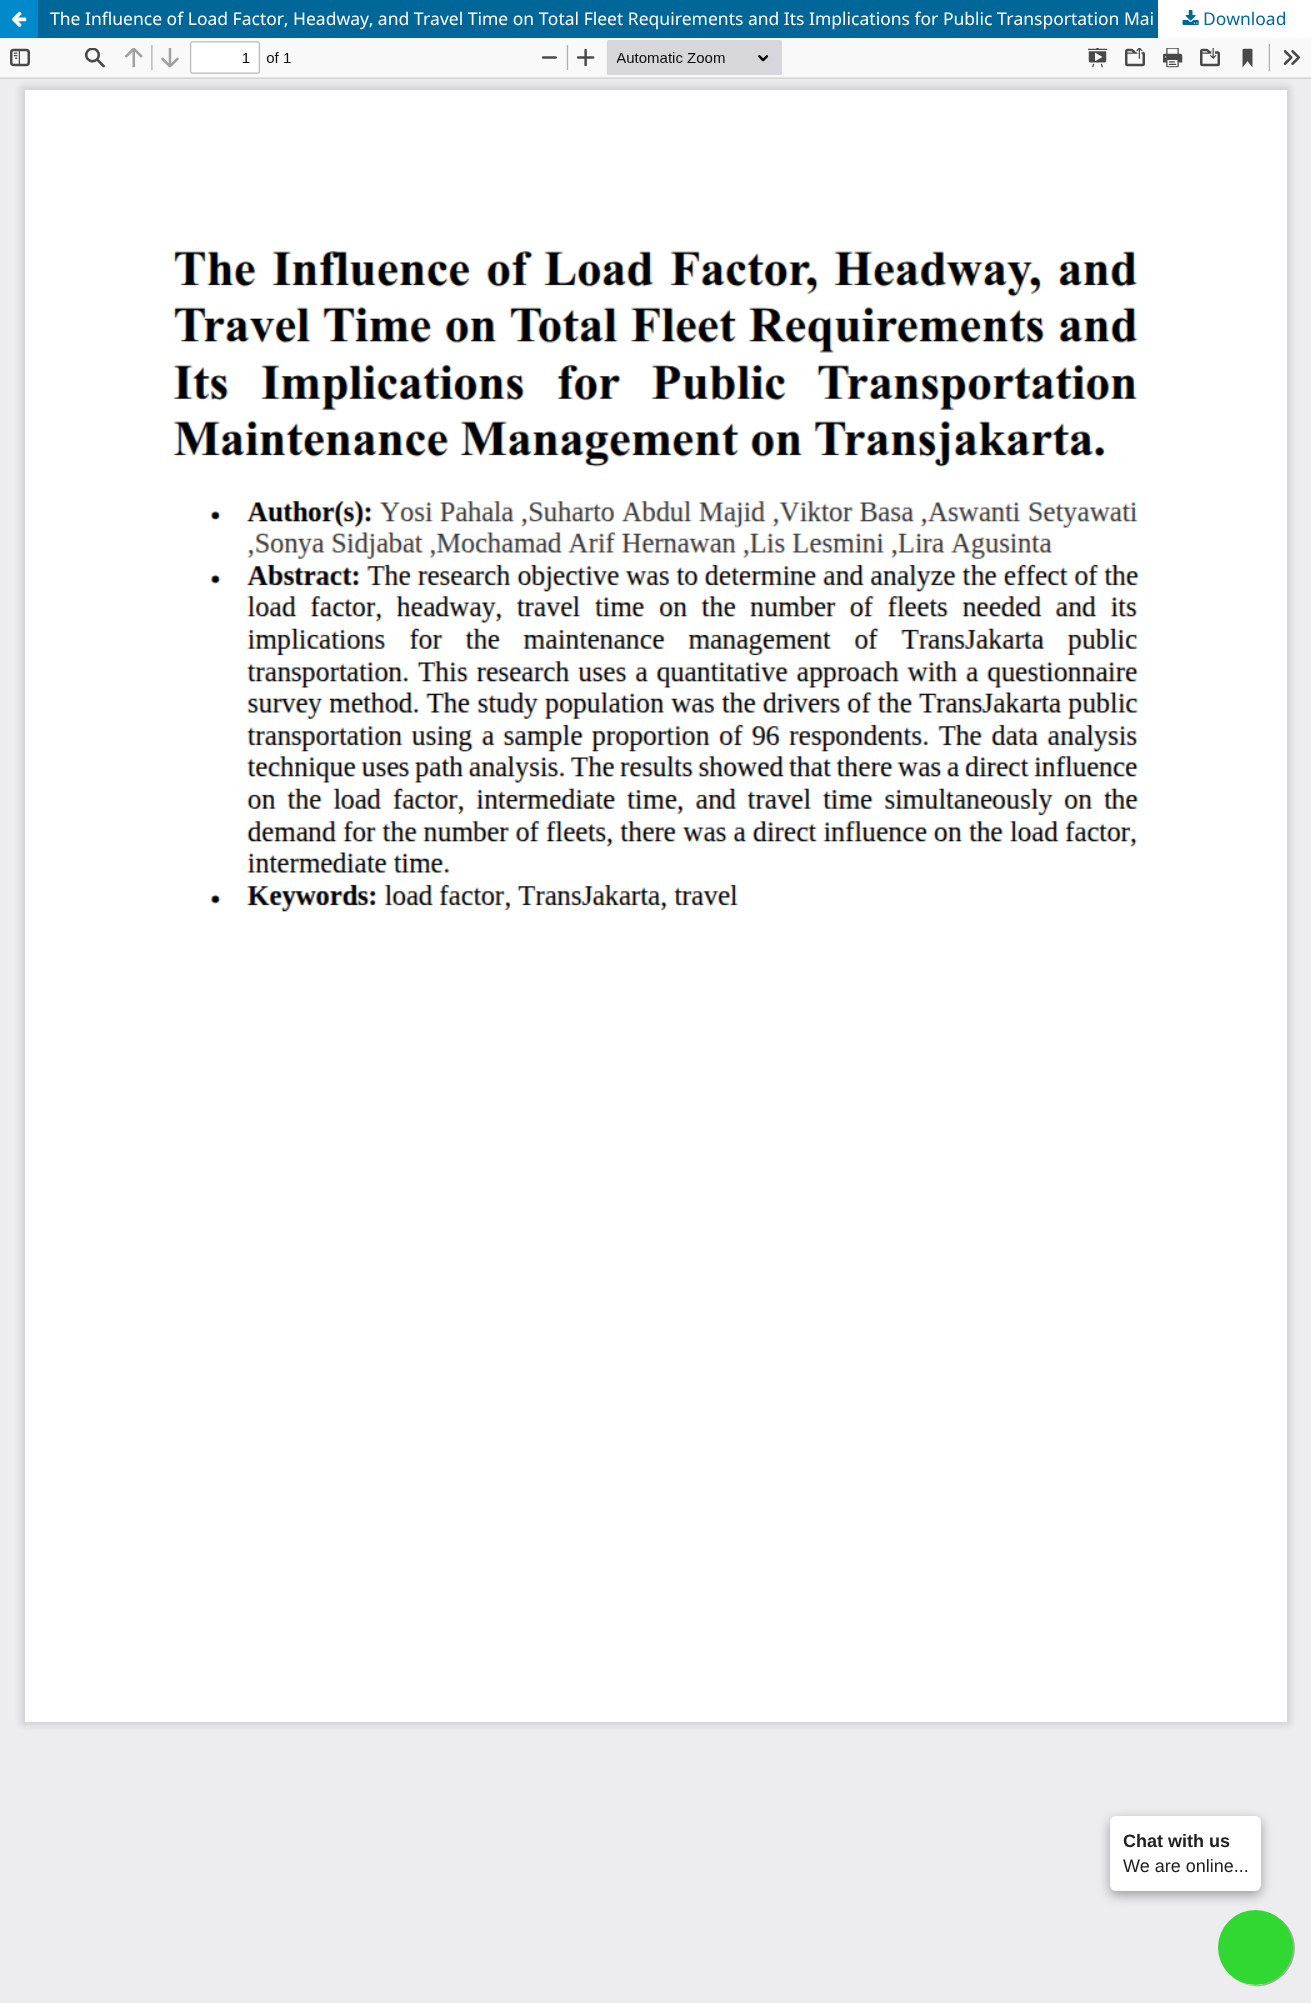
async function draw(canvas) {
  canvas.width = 1311;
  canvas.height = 2003;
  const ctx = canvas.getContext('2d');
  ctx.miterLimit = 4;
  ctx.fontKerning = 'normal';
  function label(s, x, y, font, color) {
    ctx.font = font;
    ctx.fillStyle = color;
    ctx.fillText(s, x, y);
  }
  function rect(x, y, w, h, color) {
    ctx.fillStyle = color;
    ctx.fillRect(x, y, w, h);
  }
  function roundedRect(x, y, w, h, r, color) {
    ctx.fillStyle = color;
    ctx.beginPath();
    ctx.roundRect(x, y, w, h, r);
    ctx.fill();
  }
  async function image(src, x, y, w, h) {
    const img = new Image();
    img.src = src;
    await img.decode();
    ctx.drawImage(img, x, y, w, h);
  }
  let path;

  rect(0, 0, 1311, 2003, '#fff');
  rect(38, 0, 1120, 38, '#006798');
  rect(0, 0, 38, 38, '#008acb');
  await image('assets/img1.png', 11, 11, 16, 16);
  label('The Influence of Load Factor, Headway, and Travel Time on Total Fleet Requirements and Its Implications for Public Transportation Mai', 50, 25, '17.5px Noto Sans', '#fff');
  await image('assets/img2.png', 1182, 10, 17, 15);
  label('Download', 1203, 25, '17.5px Noto Sans', '#006798');
  await image('assets/img3.png', 0, 38, 1311, 1965);
  ctx.fillStyle = '#00000057';
  ctx.filter = 'blur(6px)';
  ctx.beginPath();
  ctx.roundRect(1110, 1820, 151, 75, 6);
  ctx.fill();
  ctx.filter = 'none';
  roundedRect(1110, 1816, 151, 75, 6, '#fff');
  label('Chat with us', 1123, 1847, 'bold 18px Liberation Sans', '#212121');
  label('We are online...', 1123, 1872, '18px Liberation Sans', '#212121');
  ctx.fillStyle = '#96b797';
  path = new Path2D('M1242 1983C1276 1998 1310 1958 1288 1927C1284 1921 1277 1916 1270 1913C1277 1916 1282 1921 1286 1927C1306 1957 1275 1995 1242 1983Z');
  ctx.fill(path);
  ctx.fillStyle = '#31d831';
  ctx.beginPath();
  ctx.arc(1255.5, 1947.5, 37.5, 0, 2 * Math.PI);
  ctx.fill();
}

draw(document.querySelector('canvas'));
